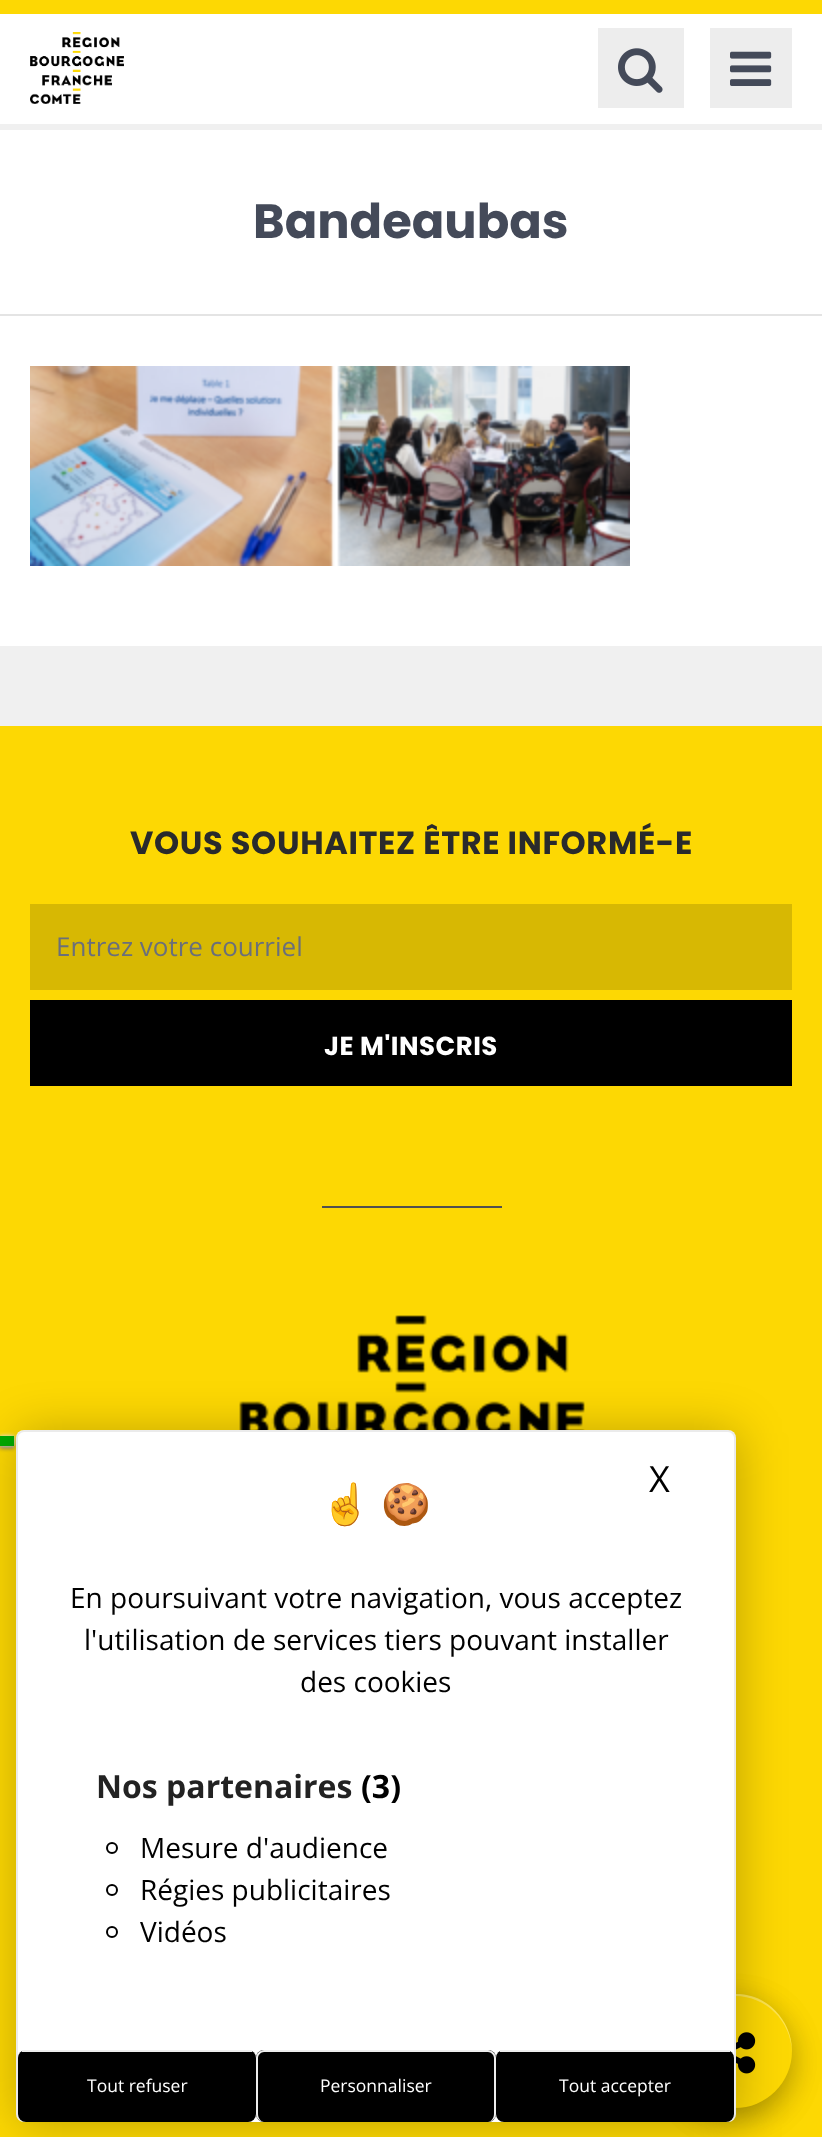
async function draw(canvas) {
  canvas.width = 822;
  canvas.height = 2137;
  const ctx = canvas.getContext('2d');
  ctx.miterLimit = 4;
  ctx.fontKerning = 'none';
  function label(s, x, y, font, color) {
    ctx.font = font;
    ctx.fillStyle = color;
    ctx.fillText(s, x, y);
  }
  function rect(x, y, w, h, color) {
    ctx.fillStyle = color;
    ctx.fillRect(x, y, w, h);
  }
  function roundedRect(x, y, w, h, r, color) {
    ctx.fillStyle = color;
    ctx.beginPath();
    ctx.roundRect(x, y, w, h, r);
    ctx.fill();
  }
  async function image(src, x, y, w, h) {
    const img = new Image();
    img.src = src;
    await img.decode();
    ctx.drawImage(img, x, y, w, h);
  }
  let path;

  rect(0, 0, 822, 2137, '#f0f0f0');
  rect(0, 14, 822, 110, '#fff');
  rect(0, 0, 822, 14, '#fdd803');
  await image('assets/img1.png', 30, 32, 94, 72);
  rect(598, 28, 86, 80, '#ededed');
  await image('assets/img2.png', 618, 48, 45, 45);
  rect(710, 28, 82, 80, '#ededed');
  await image('assets/img3.png', 730, 51, 42, 35);
  rect(0, 130, 822, 184, '#fff');
  rect(0, 314, 822, 2, '#e4e4e4');
  label('Bandeaubas', 253, 238, 'bold 48px Poppins', '#444a59');
  rect(0, 316, 822, 330, '#fff');
  await image('assets/img4.png', 30, 366, 600, 200);
  rect(0, 726, 822, 1411, '#fdd803');
  ctx.fillStyle = '#00000033';
  ctx.filter = 'blur(15px)';
  ctx.beginPath();
  ctx.roundRect(678, 2004, 114, 114, 57);
  ctx.fill();
  ctx.filter = 'none';
  ctx.fillStyle = '#00000026';
  ctx.filter = 'blur(16px)';
  ctx.beginPath();
  ctx.roundRect(678, 2004, 114, 114, 57);
  ctx.fill();
  ctx.filter = 'none';
  ctx.fillStyle = '#fdd803';
  ctx.beginPath();
  ctx.arc(735, 2051, 57, 0, 2 * Math.PI);
  ctx.fill();
  ctx.fillStyle = '#ffffff4d';
  path = new Path2D('M735 1996C766 1996 791 2021 792 2052C792 2040 789 2029 782 2019C751 1972 677 1996 678 2052C679 2021 704 1996 735 1996Z');
  ctx.fill(path);
  await image('assets/img5.png', 736, 2032, 20, 42);
  ctx.letterSpacing = '0.65px';
  label('VOUS SOUHAITEZ ÊTRE INFORMÉ-E', 130, 854, 'bold 32px Poppins', '#292a2c');
  rect(30, 904, 762, 86, '#d7b803');
  ctx.letterSpacing = '0px';
  label('Entrez votre courriel', 56, 956, '26px Open Sans', '#6a6f7b');
  rect(30, 1000, 762, 86, '#000');
  ctx.letterSpacing = '0.5px';
  label('JE M\'INSCRIS', 324, 1055, 'bold 26px Poppins', '#fff');
  rect(322, 1206, 180, 2, '#505050');
  await image('assets/img6.png', 239, 1315, 346, 115);
  ctx.fillStyle = '#555';
  ctx.filter = 'blur(2px)';
  ctx.beginPath();
  ctx.rect(0, 1438, 14, 10);
  ctx.fill();
  ctx.filter = 'none';
  ctx.fillStyle = '#fff';
  ctx.filter = 'blur(2px)';
  ctx.beginPath();
  ctx.rect(0, 1436, 14, 10);
  ctx.fill();
  ctx.filter = 'none';
  rect(0, 1436, 14, 10, '#0a0');
  ctx.fillStyle = '#00000040';
  ctx.filter = 'blur(24px)';
  ctx.beginPath();
  ctx.roundRect(18, 1432, 720, 692, 8);
  ctx.fill();
  ctx.filter = 'none';
  roundedRect(16, 1430, 720, 692, 8, '#fff');
  ctx.fillStyle = '#00000014';
  path = new Path2D('M24 1430H728C732 1430 736 1434 736 1438V2114C736 2118 732 2122 728 2122H24C20 2122 16 2118 16 2114V1438C16 1434 20 1430 24 1430ZM24 1432H728C731 1432 734 1435 734 1438V2114C734 2118 731 2122 728 2122H24C21 2122 18 2118 18 2114V1438C18 1435 21 1432 24 1432Z');
  ctx.fill(path, 'evenodd');
  ctx.letterSpacing = '0px';
  label('X', 649, 1492, '36px Open Sans', '#000');
  label('☝️', 321, 1518, 'bold 40px Noto Color Emoji', '#000');
  label('🍪', 381, 1518, 'bold 40px Noto Color Emoji', '#000');
  label('En poursuivant votre navigation, vous acceptez', 70, 1608, '28px Open Sans', '#000');
  label('l\'utilisation de services tiers pouvant installer', 84, 1650, '28px Open Sans', '#000');
  label('des cookies', 300, 1692, '28px Open Sans', '#000');
  label('Nos partenaires', 96, 1798, 'bold 32px Open Sans', '#222');
  label('(3)', 361, 1798, 'bold 32px Open Sans', '#000');
  ctx.beginPath();
  ctx.arc(112, 1848, 5, 0, 2 * Math.PI);
  ctx.strokeStyle = '#000';
  ctx.lineWidth = 2;
  ctx.stroke();
  label('Mesure d\'audience', 140, 1858, '28px Open Sans', '#000');
  ctx.beginPath();
  ctx.arc(112, 1890, 5, 0, 2 * Math.PI);
  ctx.stroke();
  label('Régies publicitaires', 140, 1900, '28px Open Sans', '#000');
  ctx.beginPath();
  ctx.arc(112, 1932, 5, 0, 2 * Math.PI);
  ctx.stroke();
  label('Vidéos', 140, 1942, '28px Open Sans', '#000');
  roundedRect(18, 2050, 238, 72, 8, '#000');
  rect(22, 2050, 230, 2, '#eee');
  label('Tout refuser', 87, 2092, '17.5px Open Sans', '#fff');
  roundedRect(256, 2050, 240, 72, 8, '#000');
  ctx.fillStyle = '#eee';
  path = new Path2D('M264 2050H488C492 2050 496 2054 496 2058V2114C496 2118 492 2122 488 2122H264C260 2122 256 2118 256 2114V2058C256 2054 260 2050 264 2050ZM264 2052H488C491 2052 494 2055 494 2058V2114C494 2118 491 2122 488 2122H264C261 2122 258 2118 258 2114V2058C258 2055 261 2052 264 2052Z');
  ctx.fill(path, 'evenodd');
  label('Personnaliser', 320, 2092, '17.5px Open Sans', '#fff');
  roundedRect(496, 2050, 238, 72, 8, '#000');
  rect(500, 2050, 230, 2, '#eee');
  label('Tout accepter', 559, 2092, '17.5px Open Sans', '#fff');
}

draw(document.querySelector('canvas'));
